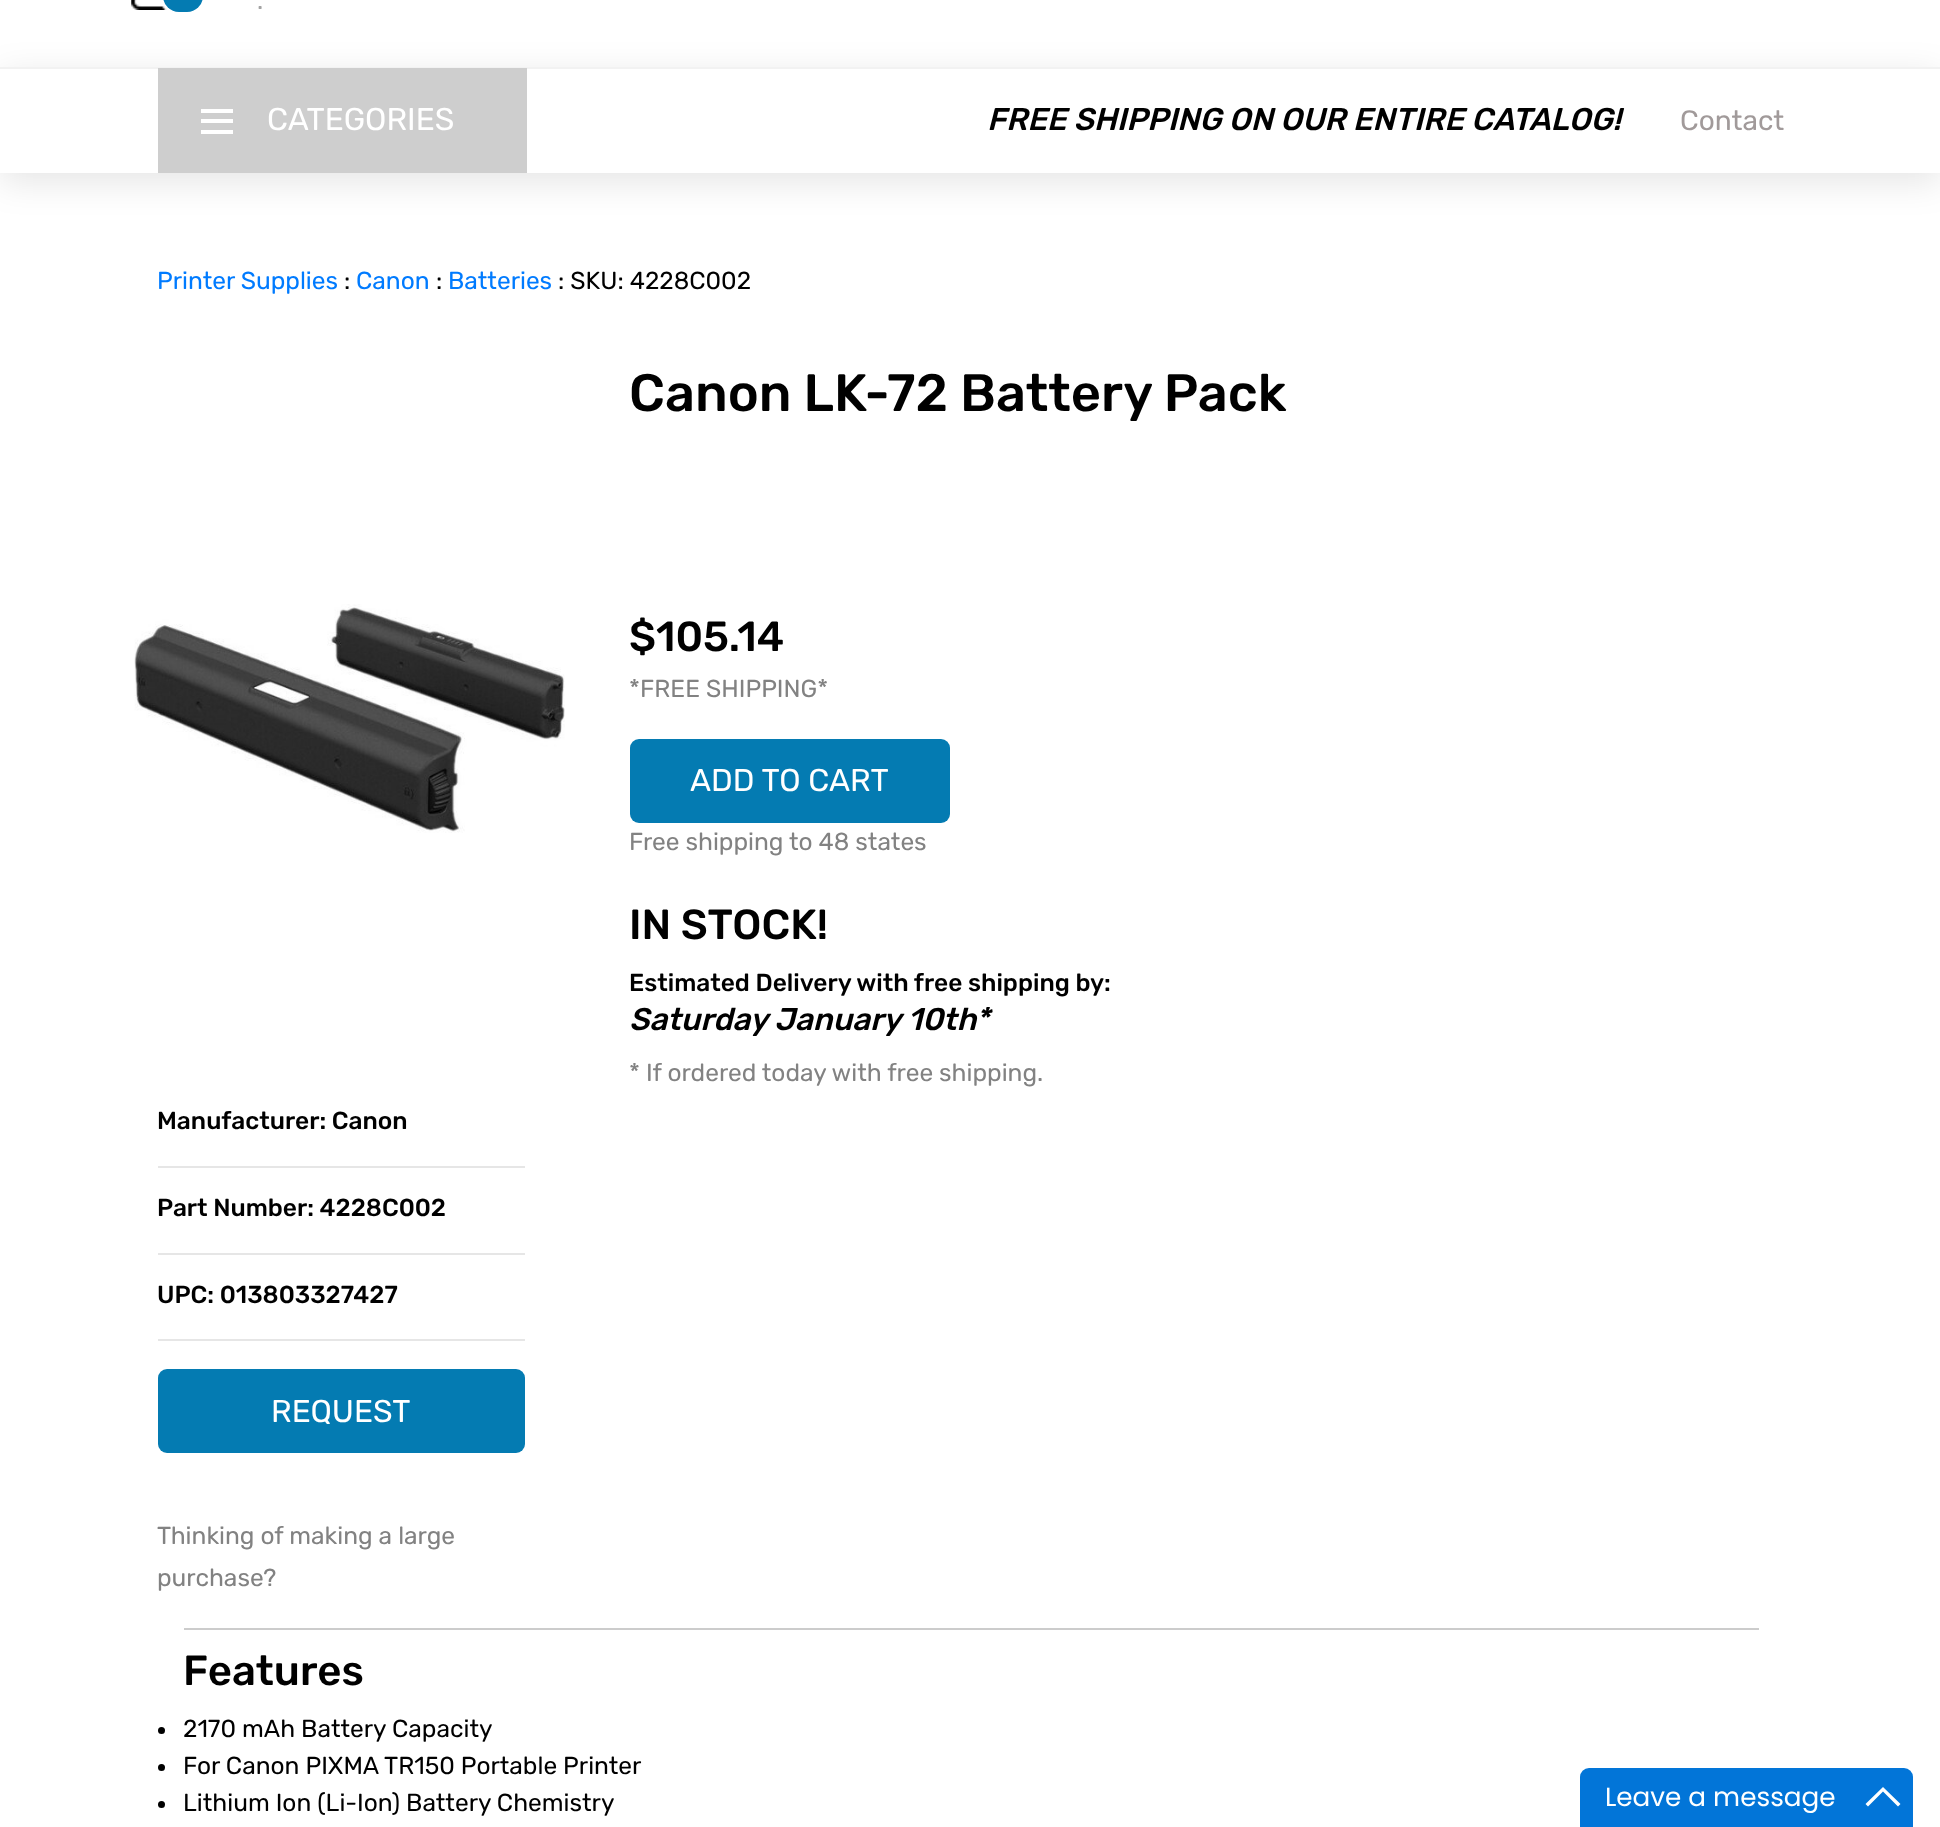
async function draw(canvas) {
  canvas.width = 1940;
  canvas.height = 1827;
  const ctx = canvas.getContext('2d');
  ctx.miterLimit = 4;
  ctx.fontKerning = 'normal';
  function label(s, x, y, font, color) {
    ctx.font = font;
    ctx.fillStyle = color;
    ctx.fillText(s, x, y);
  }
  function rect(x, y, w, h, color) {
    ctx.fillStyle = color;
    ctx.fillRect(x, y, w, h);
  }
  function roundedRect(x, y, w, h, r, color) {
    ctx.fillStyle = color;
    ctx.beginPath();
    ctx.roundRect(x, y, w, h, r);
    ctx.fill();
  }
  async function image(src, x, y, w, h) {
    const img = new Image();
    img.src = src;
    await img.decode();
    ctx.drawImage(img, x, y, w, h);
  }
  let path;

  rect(0, 0, 1940, 1827, '#fff');
  await image('assets/img1.png', 131, 0, 36, 10);
  roundedRect(163, -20, 40, 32, 20, '#047bb2');
  label('.', 257, 9, '24.5px Rubik', '#a3a3a3');
  ctx.save();
  path = new Path2D('M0 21H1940V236H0ZM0 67H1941V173H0Z');
  ctx.clip(path, 'evenodd');
  ctx.fillStyle = '#0000001a';
  ctx.filter = 'blur(17.5px)';
  ctx.beginPath();
  ctx.rect(0, 75, 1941, 107);
  ctx.fill();
  ctx.filter = 'none';
  ctx.restore();
  rect(0, 67, 1940, 2, '#f2f2f2');
  rect(158, 68, 369, 105, '#cecece');
  rect(201, 109, 32, 4, '#fff');
  rect(201, 119, 32, 4, '#fff');
  rect(201, 130, 32, 4, '#fff');
  label('CATEGORIES', 267, 130, '31.5px Rubik', '#fff');
  label('FREE SHIPPING ON OUR ENTIRE CATALOG!', 987, 130, 'italic 500 31.5px Rubik', '#000');
  label('Contact', 1680, 130, '28px Rubik', '#a19a9a');
  label('Printer Supplies', 157, 289, '24.5px Rubik', '#007bff');
  label(':', 344, 289, '24.5px Rubik', '#000');
  label('Canon', 356, 289, '24.5px Rubik', '#007bff');
  label(':', 436, 289, '24.5px Rubik', '#000');
  label('Batteries', 448, 289, '24.5px Rubik', '#007bff');
  label(': SKU: 4228C002', 558, 289, '24.5px Rubik', '#000');
  label('Canon LK-72 Battery Pack', 629, 411, '500 52.5px Rubik', '#000');
  label('$105.14', 629, 651, '500 42px Rubik', '#000');
  label('*FREE SHIPPING*', 629, 697, '24.5px Rubik', '#828282');
  roundedRect(630, 739, 320, 84, 9, '#047bb2');
  label('ADD TO CART', 690, 791, '31.5px Rubik', '#fff');
  label('Free shipping to 48 states', 629, 850, '24.5px Rubik', '#828282');
  label('IN STOCK!', 629, 939, '500 42px Rubik', '#000');
  label('Estimated Delivery with free shipping by:', 629, 991, '500 24.5px Rubik', '#000');
  label('Saturday January 10th*', 629, 1030, 'italic 500 31.5px Rubik', '#000');
  label('* If ordered today with free shipping.', 629, 1081, '24.5px Rubik', '#828282');
  await image('assets/img2.png', 134, 604, 431, 229);
  label('Manufacturer: Canon', 157, 1129, '500 24.5px Rubik', '#000');
  rect(158, 1166, 367, 2, '#e6e6e6');
  label('Part Number: 4228C002', 157, 1216, '500 24.5px Rubik', '#000');
  rect(158, 1253, 367, 2, '#e6e6e6');
  label('UPC: 013803327427', 157, 1303, '500 24.5px Rubik', '#000');
  rect(158, 1339, 367, 2, '#e6e6e6');
  roundedRect(158, 1369, 367, 84, 9, '#047bb2');
  label('REQUEST', 271, 1422, '31.5px Rubik', '#fff');
  label('Thinking of making a large', 157, 1544, '24.5px Rubik', '#828282');
  label('purchase?', 157, 1586, '24.5px Rubik', '#828282');
  rect(184, 1628, 1575, 2, '#ccc');
  label('Features', 183, 1685, '500 42px Rubik', '#000');
  ctx.beginPath();
  ctx.arc(161.5, 1730.5, 3.5, 0, 2 * Math.PI);
  ctx.fill();
  label('2170 mAh Battery Capacity', 183, 1737, '24.5px Rubik', '#000');
  ctx.beginPath();
  ctx.arc(161.5, 1767.5, 3.5, 0, 2 * Math.PI);
  ctx.fill();
  label('For Canon PIXMA TR150 Portable Printer', 183, 1774, '24.5px Rubik', '#000');
  ctx.beginPath();
  ctx.arc(161.5, 1804.5, 3.5, 0, 2 * Math.PI);
  ctx.fill();
  label('Lithium Ion (Li-Ion) Battery Chemistry', 183, 1811, '24.5px Rubik', '#000');
  ctx.fillStyle = '#0275d8';
  ctx.beginPath();
  ctx.roundRect(1580, 1768, 333, 59, [9, 9, 0, 0]);
  ctx.fill();
  label('Leave a message', 1605, 1806, '26.25px Poppins', '#fff');
  path = new Path2D('M1883 1787L1900.5 1804L1898 1806.5L1883 1791.5L1868 1806.5L1865.5 1804Z');
  ctx.fill(path);
}

draw(document.querySelector('canvas'));
